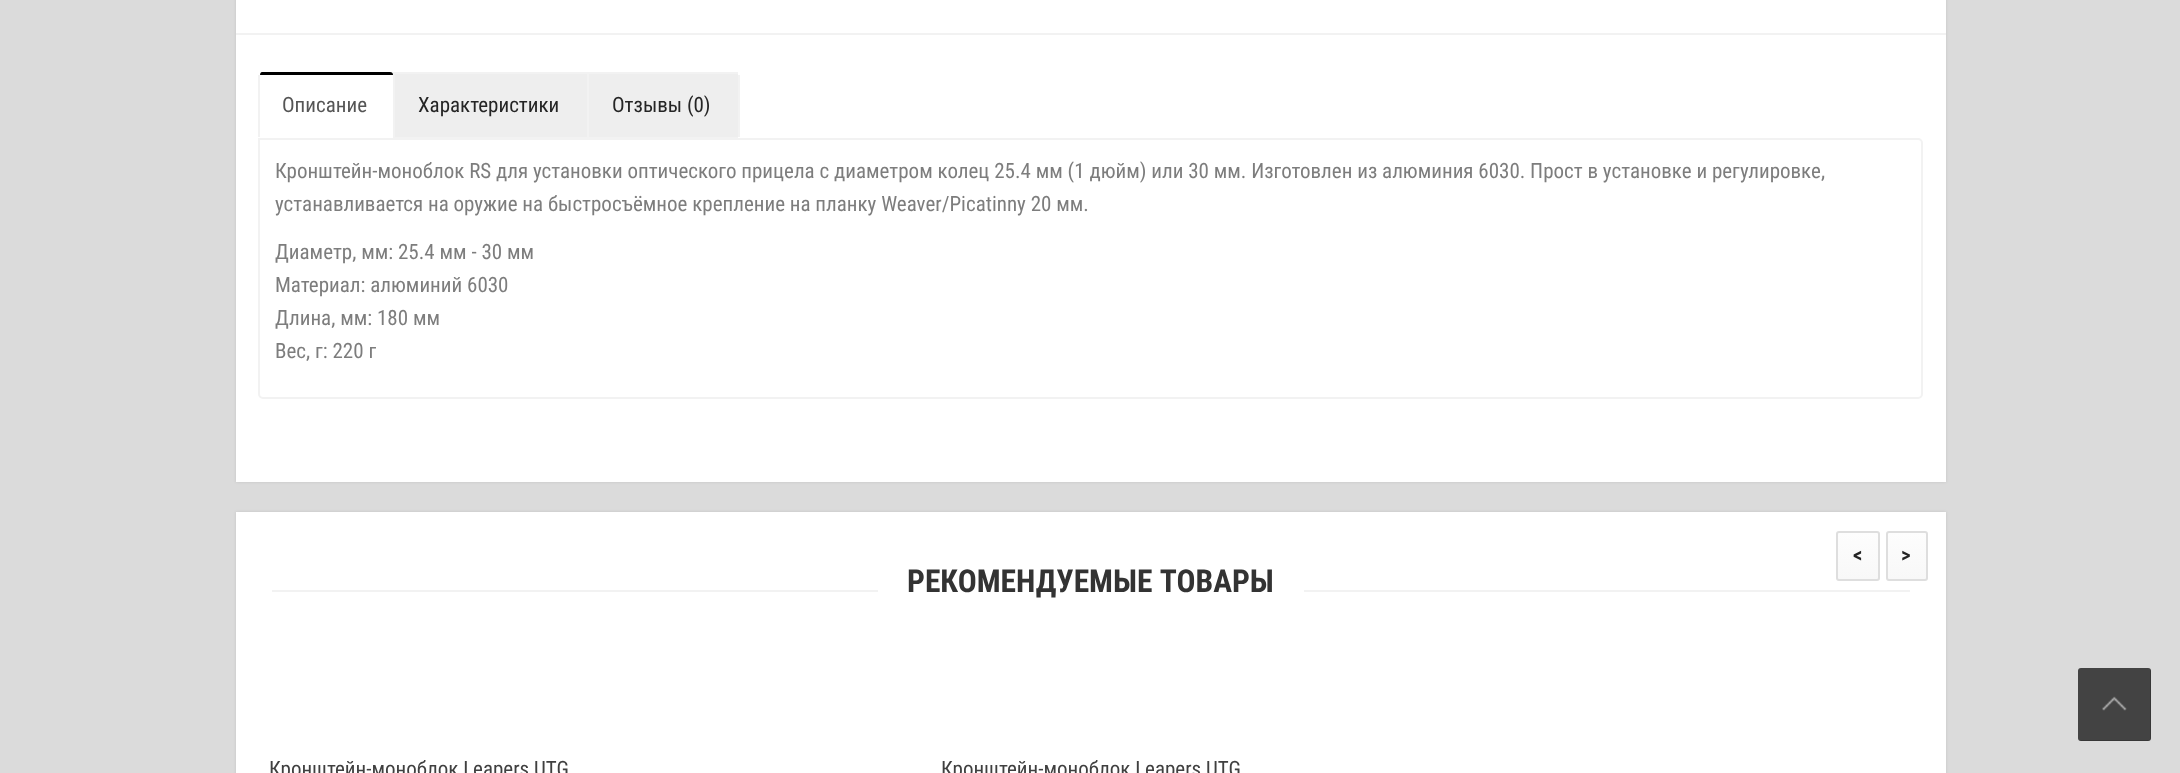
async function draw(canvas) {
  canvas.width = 2180;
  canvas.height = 773;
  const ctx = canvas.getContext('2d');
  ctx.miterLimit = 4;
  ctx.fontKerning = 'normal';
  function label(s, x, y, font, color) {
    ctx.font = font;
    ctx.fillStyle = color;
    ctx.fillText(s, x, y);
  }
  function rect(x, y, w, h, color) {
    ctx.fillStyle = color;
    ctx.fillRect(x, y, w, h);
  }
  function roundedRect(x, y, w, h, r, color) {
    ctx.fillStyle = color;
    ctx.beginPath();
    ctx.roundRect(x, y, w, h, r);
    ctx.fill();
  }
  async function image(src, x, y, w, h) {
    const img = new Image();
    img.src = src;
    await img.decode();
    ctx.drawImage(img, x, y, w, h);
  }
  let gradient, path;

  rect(0, 0, 2180, 773, '#dbdbdb');
  ctx.fillStyle = '#0000001a';
  ctx.filter = 'blur(1.5px)';
  ctx.beginPath();
  ctx.rect(236, -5, 1710, 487);
  ctx.fill();
  ctx.filter = 'none';
  rect(236, 0, 1710, 482, '#fff');
  rect(236, 33, 1710, 2, '#f2f2f2');
  rect(738, 75, 2, 62, '#f2f2f2');
  rect(258, 75, 2, 62, '#f2f2f2');
  ctx.fillStyle = '#000';
  path = new Path2D('M262 72C261 72 260 73 260 75H393C393 73 392 72 390 72Z');
  ctx.fill(path);
  label('Описание', 282, 112, '21px Roboto Condensed', '#555');
  rect(395, 74, 192, 63, '#eee');
  rect(393, 72, 345, 2, '#f2f2f2');
  rect(393, 137, 345, 1, '#f2f2f2');
  rect(393, 72, 2, 66, '#f2f2f2');
  label('Характеристики', 418, 112, '21px Roboto Condensed', '#252525');
  rect(589, 74, 149, 63, '#eee');
  rect(587, 72, 2, 66, '#f2f2f2');
  label('Отзывы (0)', 612, 112, '21px Roboto Condensed', '#252525');
  ctx.beginPath();
  ctx.roundRect(259, 139, 1663, 259, [0, 4, 4, 4]);
  ctx.strokeStyle = '#f2f2f2';
  ctx.lineWidth = 2;
  ctx.stroke();
  label('Кронштейн-моноблок RS для установки оптического прицела с диаметром колец 25.4 мм (1 дюйм) или 30 мм. Изготовлен из алюминия 6030. Прост в установке и регулировке,', 275, 178, '21px Roboto Condensed', '#7d7d7d');
  label('устанавливается на оружие на быстросъёмное крепление на планку Weaver/Picatinny 20 мм.', 275, 211, '21px Roboto Condensed', '#7d7d7d');
  label('Диаметр, мм: 25.4 мм - 30 мм', 275, 259, '21px Roboto Condensed', '#7d7d7d');
  label('Материал: алюминий 6030', 275, 292, '21px Roboto Condensed', '#7d7d7d');
  label('Длина, мм: 180 мм', 275, 325, '21px Roboto Condensed', '#7d7d7d');
  label('Вес, г: 220 г', 275, 358, '21px Roboto Condensed', '#7d7d7d');
  ctx.fillStyle = '#0000001a';
  ctx.filter = 'blur(1.5px)';
  ctx.beginPath();
  ctx.rect(236, 512, 1710, 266);
  ctx.fill();
  ctx.filter = 'none';
  rect(236, 512, 1710, 261, '#fff');
  ctx.save();
  ctx.beginPath();
  ctx.roundRect(1836, 531, 44, 50, 3);
  ctx.clip();
  gradient = ctx.createLinearGradient(1858, 533, 1858, 579);
  gradient.addColorStop(0, '#fdfdfd');
  gradient.addColorStop(1, '#f8f8f8');
  ctx.fillStyle = gradient;
  ctx.fillRect(1836, 533, 44, 46);
  ctx.restore();
  ctx.beginPath();
  ctx.roundRect(1837, 532, 42, 48, 2);
  ctx.strokeStyle = '#dedede';
  ctx.stroke();
  label('<', 1853, 562, 'bold 21px Roboto Condensed', '#252525');
  ctx.save();
  ctx.beginPath();
  ctx.roundRect(1886, 531, 42, 50, 3);
  ctx.clip();
  gradient = ctx.createLinearGradient(1907, 533, 1907, 579);
  gradient.addColorStop(0, '#fdfdfd');
  gradient.addColorStop(1, '#f8f8f8');
  ctx.fillStyle = gradient;
  ctx.fillRect(1886, 533, 42, 46);
  ctx.restore();
  ctx.beginPath();
  ctx.roundRect(1887, 532, 40, 48, 2);
  ctx.stroke();
  label('>', 1901, 562, 'bold 21px Roboto Condensed', '#252525');
  label('Кронштейн-моноблок Leapers UTG', 269, 776, '21px Roboto Condensed', '#404040');
  label('Кронштейн-моноблок Leapers UTG', 941, 776, '21px Roboto Condensed', '#404040');
  rect(272, 590, 1638, 2, '#f2f2f2');
  rect(878, 590, 426, 2, '#fff');
  ctx.wordSpacing = '1px';
  label('РЕКОМЕНДУЕМЫЕ ТОВАРЫ', 907, 592, 'bold 31.5px Roboto Condensed', '#333');
  roundedRect(2078, 668, 73, 73, 3, '#141414');
  await image('assets/img1.png', 2078, 668, 73, 73);
}

draw(document.querySelector('canvas'));
